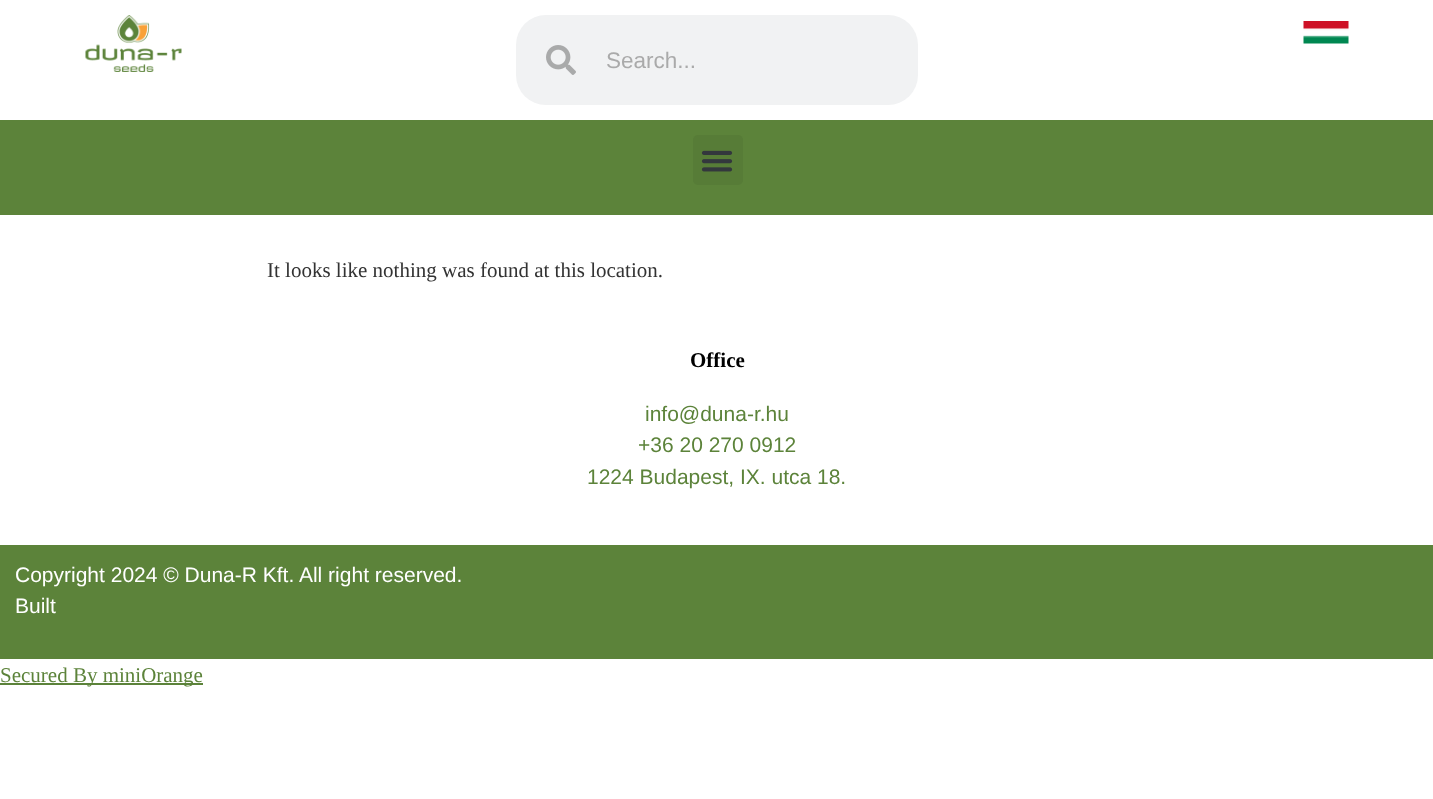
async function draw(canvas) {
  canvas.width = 1433;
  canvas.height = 799;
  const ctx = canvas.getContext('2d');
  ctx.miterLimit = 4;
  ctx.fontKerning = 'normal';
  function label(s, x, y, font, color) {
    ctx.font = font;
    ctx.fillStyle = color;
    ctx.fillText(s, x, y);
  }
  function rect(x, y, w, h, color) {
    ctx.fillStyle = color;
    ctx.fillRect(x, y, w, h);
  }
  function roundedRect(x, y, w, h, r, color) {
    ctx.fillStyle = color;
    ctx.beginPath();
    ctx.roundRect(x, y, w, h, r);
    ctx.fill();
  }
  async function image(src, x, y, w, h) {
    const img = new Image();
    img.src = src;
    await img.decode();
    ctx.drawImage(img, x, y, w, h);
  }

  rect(0, 0, 1433, 799, '#fff');
  await image('assets/img1.png', 85, 15, 97, 57);
  await image('assets/img2.png', 1303, 21, 46, 23);
  roundedRect(516, 15, 402, 90, 30, '#f1f2f3');
  await image('assets/img3.png', 546, 45, 30, 30);
  label('Search...', 606, 68, '22.5px Liberation Sans', '#aaa');
  rect(0, 120, 1433, 95, '#5c833a');
  roundedRect(693, 135, 50, 50, 5, '#577c37');
  await image('assets/img4.png', 701, 150, 32, 22);
  label('It looks like nothing was found at this location.', 267, 277, '21px Liberation Serif', '#333');
  label('Office', 690, 367, 'bold 21px Liberation Serif', '#000');
  label('info@duna-r.hu', 645, 421, '21px Liberation Sans', '#5c833a');
  label('+36 20 270 0912', 638, 452, '21px Liberation Sans', '#5c833a');
  label('1224 Budapest, IX. utca 18.', 587, 484, '21px Liberation Sans', '#5c833a');
  rect(0, 545, 1433, 114, '#5c833a');
  label('Copyright 2024 © Duna-R Kft. All right reserved.', 15, 582, '21px Liberation Sans', '#fff');
  label('Built', 15, 613, '21px Liberation Sans', '#fff');
  rect(0, 683, 203, 2, '#5c833a');
  label('Secured By miniOrange', 0, 682, '21px Liberation Serif', '#5c833a');
}

draw(document.querySelector('canvas'));
